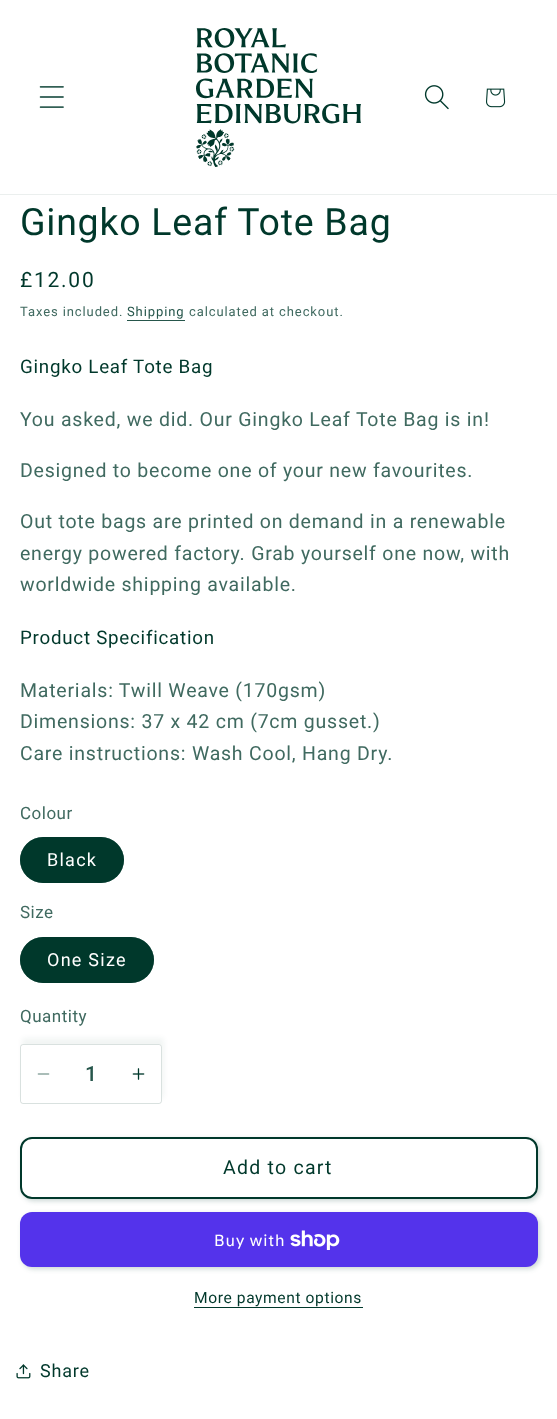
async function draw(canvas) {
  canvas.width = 557;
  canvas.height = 1419;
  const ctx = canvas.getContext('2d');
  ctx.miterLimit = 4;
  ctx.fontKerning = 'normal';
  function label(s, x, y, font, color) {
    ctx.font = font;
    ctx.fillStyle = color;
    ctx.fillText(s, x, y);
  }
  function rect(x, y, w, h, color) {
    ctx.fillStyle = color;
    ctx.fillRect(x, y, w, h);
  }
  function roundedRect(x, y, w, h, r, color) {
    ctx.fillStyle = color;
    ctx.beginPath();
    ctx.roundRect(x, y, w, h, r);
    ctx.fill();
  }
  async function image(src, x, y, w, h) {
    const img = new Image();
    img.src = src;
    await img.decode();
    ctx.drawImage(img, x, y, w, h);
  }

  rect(0, 0, 557, 1419, '#fff');
  rect(0, 194, 557, 1, '#ebefee');
  await image('assets/img1.png', 39, 86, 25, 22);
  await image('assets/img2.png', 196, 28, 165, 139);
  await image('assets/img3.png', 424, 85, 25, 25);
  await image('assets/img4.png', 486, 88, 20, 20);
  ctx.letterSpacing = '0.75px';
  label('Gingko Leaf Tote Bag', 20, 235, '37.5px Roboto', '#00382b');
  ctx.letterSpacing = '1.75px';
  label('£12.00', 20, 287, '21px Roboto', '#00382b');
  ctx.letterSpacing = '0.9px';
  label('Taxes included.', 20, 316, '13px Roboto', '#406a60');
  label('Shipping', 127, 316, '13px Roboto', '#26564b');
  rect(127, 320, 58, 1, '#26564b');
  label('calculated at checkout.', 189, 316, '13px Roboto', '#406a60');
  ctx.letterSpacing = '0.75px';
  label('Gingko Leaf Tote Bag', 20, 373, '18.75px Roboto', '#00382b');
  ctx.letterSpacing = '0.78px';
  label('You asked, we did. Our Gingko Leaf Tote Bag is in!', 20, 426, '19.5px Roboto', '#406a60');
  label('Designed to become one of your new favourites.', 20, 477, '19.5px Roboto', '#406a60');
  label('Out tote bags are printed on demand in a renewable', 20, 528, '19.5px Roboto', '#406a60');
  label('energy powered factory. Grab yourself one now, with', 20, 560, '19.5px Roboto', '#406a60');
  label('worldwide shipping available.', 20, 591, '19.5px Roboto', '#406a60');
  ctx.letterSpacing = '0.75px';
  label('Product Specification', 20, 644, '18.75px Roboto', '#00382b');
  ctx.letterSpacing = '0.78px';
  label('Materials: Twill Weave (170gsm)', 20, 697, '19.5px Roboto', '#406a60');
  label('Dimensions: 37 x 42 cm (7cm gusset.)', 20, 728, '19.5px Roboto', '#406a60');
  label('Care instructions: Wash Cool, Hang Dry.', 20, 760, '19.5px Roboto', '#406a60');
  ctx.letterSpacing = '0.5px';
  label('Colour', 20, 819, '17px Roboto', '#406a60');
  roundedRect(20, 837, 104, 46, 23, '#00382b');
  ctx.beginPath();
  ctx.roundRect(20.5, 837.5, 103, 45, 22.5);
  ctx.strokeStyle = '#00382b8c';
  ctx.stroke();
  ctx.letterSpacing = '1.25px';
  label('Black', 47, 866, '18px Roboto', '#fff');
  ctx.letterSpacing = '0.5px';
  label('Size', 20, 918, '17px Roboto', '#406a60');
  roundedRect(20, 937, 134, 46, 23, '#00382b');
  ctx.beginPath();
  ctx.roundRect(20.5, 937.5, 133, 45, 22.5);
  ctx.stroke();
  ctx.letterSpacing = '1.25px';
  label('One Size', 47, 966, '18px Roboto', '#fff');
  ctx.letterSpacing = '0.5px';
  label('Quantity', 20, 1022, '17px Roboto', '#406a60');
  ctx.fillStyle = '#00382b0d';
  ctx.filter = 'blur(2.5px)';
  ctx.beginPath();
  ctx.roundRect(22, 1038, 142, 60, 3);
  ctx.fill();
  ctx.filter = 'none';
  roundedRect(20, 1044, 142, 60, 3, '#fff');
  await image('assets/img5.png', 37, 1073, 13, 2);
  await image('assets/img6.png', 132, 1068, 13, 12);
  ctx.beginPath();
  ctx.roundRect(20.5, 1044.5, 141, 59, 2.5);
  ctx.strokeStyle = '#00382b26';
  ctx.stroke();
  ctx.letterSpacing = '0px';
  label('1', 85, 1081, '500 21px Roboto', '#26564b');
  ctx.fillStyle = '#00382b33';
  ctx.filter = 'blur(2.5px)';
  ctx.beginPath();
  ctx.roundRect(22, 1139, 518, 62, 12);
  ctx.fill();
  ctx.filter = 'none';
  roundedRect(20, 1137, 518, 62, 12, '#fff');
  ctx.beginPath();
  ctx.roundRect(21, 1138, 516, 60, 11);
  ctx.strokeStyle = '#fff';
  ctx.lineWidth = 2;
  ctx.stroke();
  ctx.beginPath();
  ctx.roundRect(21, 1138, 516, 60, 11);
  ctx.strokeStyle = '#00382b';
  ctx.stroke();
  ctx.letterSpacing = '1.25px';
  label('Add to cart', 223, 1174, '19.5px Roboto', '#00382b');
  ctx.fillStyle = '#00382b33';
  ctx.filter = 'blur(2.5px)';
  ctx.beginPath();
  ctx.roundRect(22, 1214, 518, 55, 12);
  ctx.fill();
  ctx.filter = 'none';
  roundedRect(20, 1212, 518, 55, 12, '#5433eb');
  ctx.letterSpacing = '0.78px';
  label('Buy with', 214, 1246, '16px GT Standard', '#fff');
  await image('assets/img7.png', 290, 1230, 50, 20);
  ctx.letterSpacing = '0.6px';
  label('More payment options', 194, 1303, '15.6px Roboto', '#00382b');
  rect(194, 1307, 169, 1, '#00382b');
  await image('assets/img8.png', 16, 1364, 15, 15);
  ctx.letterSpacing = '0.78px';
  label('Share', 40, 1377, '18px Roboto', '#00382b');
}

draw(document.querySelector('canvas'));
